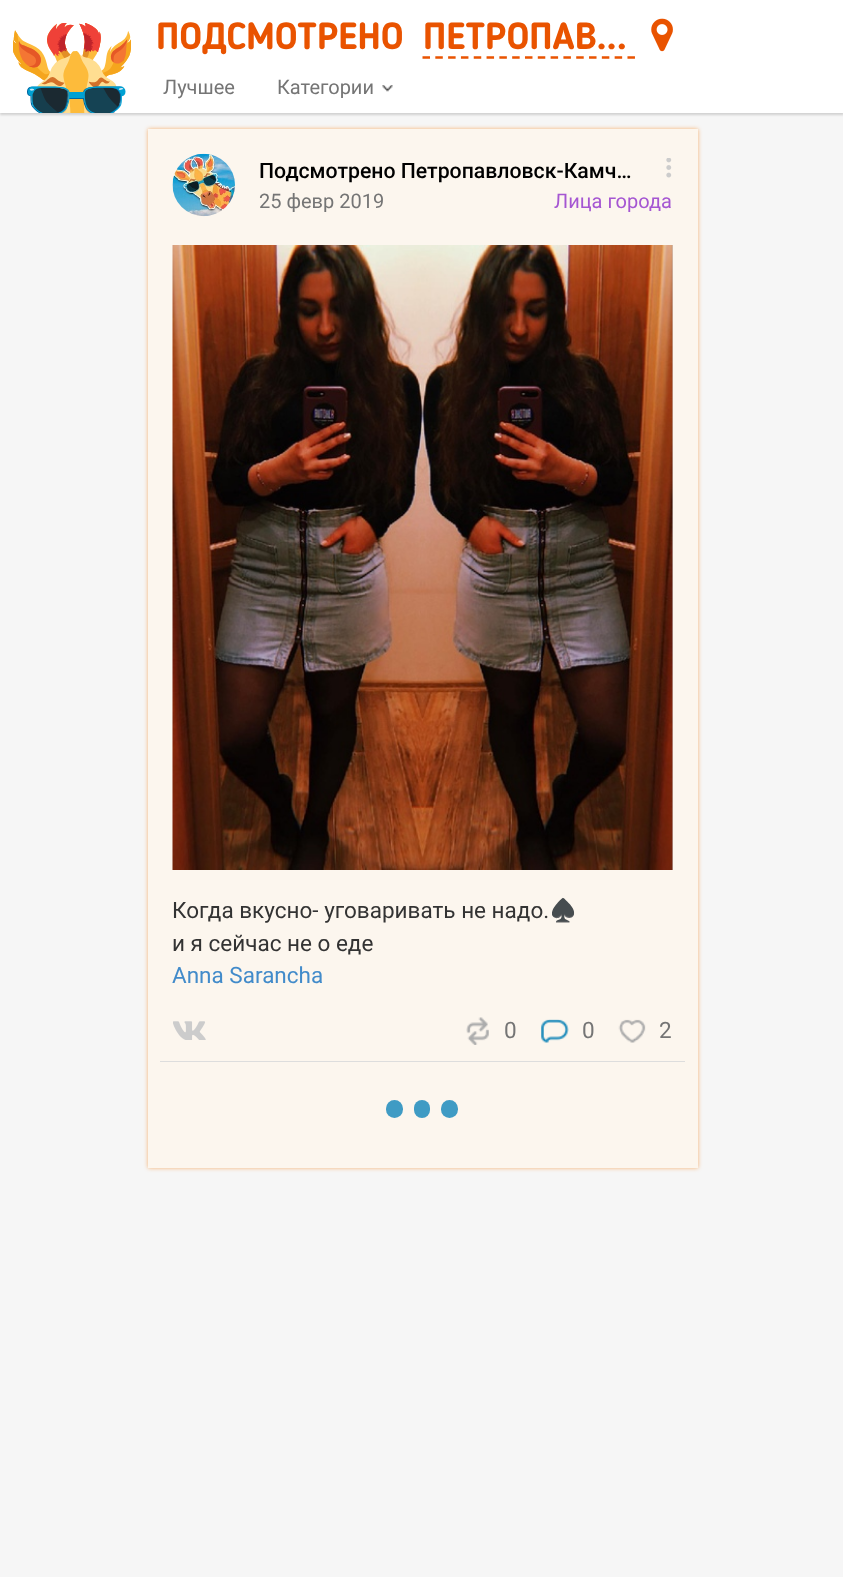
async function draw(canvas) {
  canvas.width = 843;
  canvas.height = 1577;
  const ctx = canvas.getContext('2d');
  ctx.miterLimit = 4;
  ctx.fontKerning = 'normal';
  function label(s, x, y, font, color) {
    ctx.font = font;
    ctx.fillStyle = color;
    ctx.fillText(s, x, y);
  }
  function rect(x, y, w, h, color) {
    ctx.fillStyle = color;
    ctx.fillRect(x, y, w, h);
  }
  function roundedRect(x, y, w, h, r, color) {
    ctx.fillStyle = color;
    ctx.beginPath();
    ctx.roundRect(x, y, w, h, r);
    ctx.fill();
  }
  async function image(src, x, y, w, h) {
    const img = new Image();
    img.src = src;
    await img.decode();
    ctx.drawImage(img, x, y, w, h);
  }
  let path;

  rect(0, 0, 843, 1577, '#f6f6f6');
  ctx.fillStyle = '#00000026';
  ctx.filter = 'blur(1px)';
  ctx.beginPath();
  ctx.rect(0, 3, 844, 112);
  ctx.fill();
  ctx.filter = 'none';
  rect(0, 0, 843, 113, '#fff');
  await image('assets/img1.png', 13, 23, 118, 90);
  label('ПОДСМОТРЕНО', 156, 49, 'bold 37.5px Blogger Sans', '#e95300');
  path = new Path2D('M422.5 57.5H635');
  ctx.strokeStyle = '#e95300';
  ctx.lineWidth = 2.5;
  ctx.setLineDash([7.5, 5.31]);
  ctx.stroke(path);
  label('ПЕТРОПАВ...', 423, 49, 'bold 37.5px Blogger Sans', '#e95300');
  await image('assets/img2.png', 651, 18, 22, 34);
  label('Лучшее', 163, 94, '20px Roboto', '#757575');
  label('Категории', 277, 94, '20px Roboto', '#757575');
  await image('assets/img3.png', 382, 85, 11, 7);
  ctx.fillStyle = '#f678008c';
  ctx.filter = 'blur(2px)';
  ctx.beginPath();
  ctx.rect(148, 129, 550, 1039);
  ctx.fill();
  ctx.filter = 'none';
  rect(148, 129, 550, 1039, '#fcf6ee');
  await image('assets/img4.png', 172, 153, 63, 64);
  label('Подсмотрено Петропавловск-Камч…', 259, 178, '500 21.25px Roboto', '#000');
  await image('assets/img5.png', 666, 158, 6, 20);
  label('25 февр 2019', 259, 208, '20px Roboto', '#757575');
  label('Лица города', 554, 208, '20px Roboto', '#a556d2');
  rect(672, 245, 1, 625, '#cdcdcd');
  await image('assets/img6.png', 172, 245, 501, 625);
  label('Когда вкусно- уговаривать не надо.', 172, 918, '22.5px Roboto', '#333');
  label('♠️', 549, 918, '22.5px Noto Color Emoji', '#333');
  label('и я сейчас не о еде', 172, 951, '22.5px Roboto', '#333');
  label('Anna Sarancha', 172, 983, '22.5px Roboto', '#428bca');
  await image('assets/img7.png', 173, 1021, 33, 19);
  await image('assets/img8.png', 466, 1017, 23, 28);
  label('0', 504, 1038, '22.5px Roboto', '#757575');
  await image('assets/img9.png', 541, 1019, 28, 24);
  label('0', 582, 1038, '22.5px Roboto', '#757575');
  await image('assets/img10.png', 618, 1019, 28, 24);
  label('2', 659, 1038, '22.5px Roboto', '#757575');
  rect(160, 1061, 525, 1, '#ddd');
  roundedRect(386, 1100, 17, 18, 8.5, '#3f9bc4');
  roundedRect(441, 1100, 17, 18, 8.5, '#3f9bc4');
  roundedRect(414, 1100, 16, 18, 8, '#3f9bc4');
}

draw(document.querySelector('canvas'));
